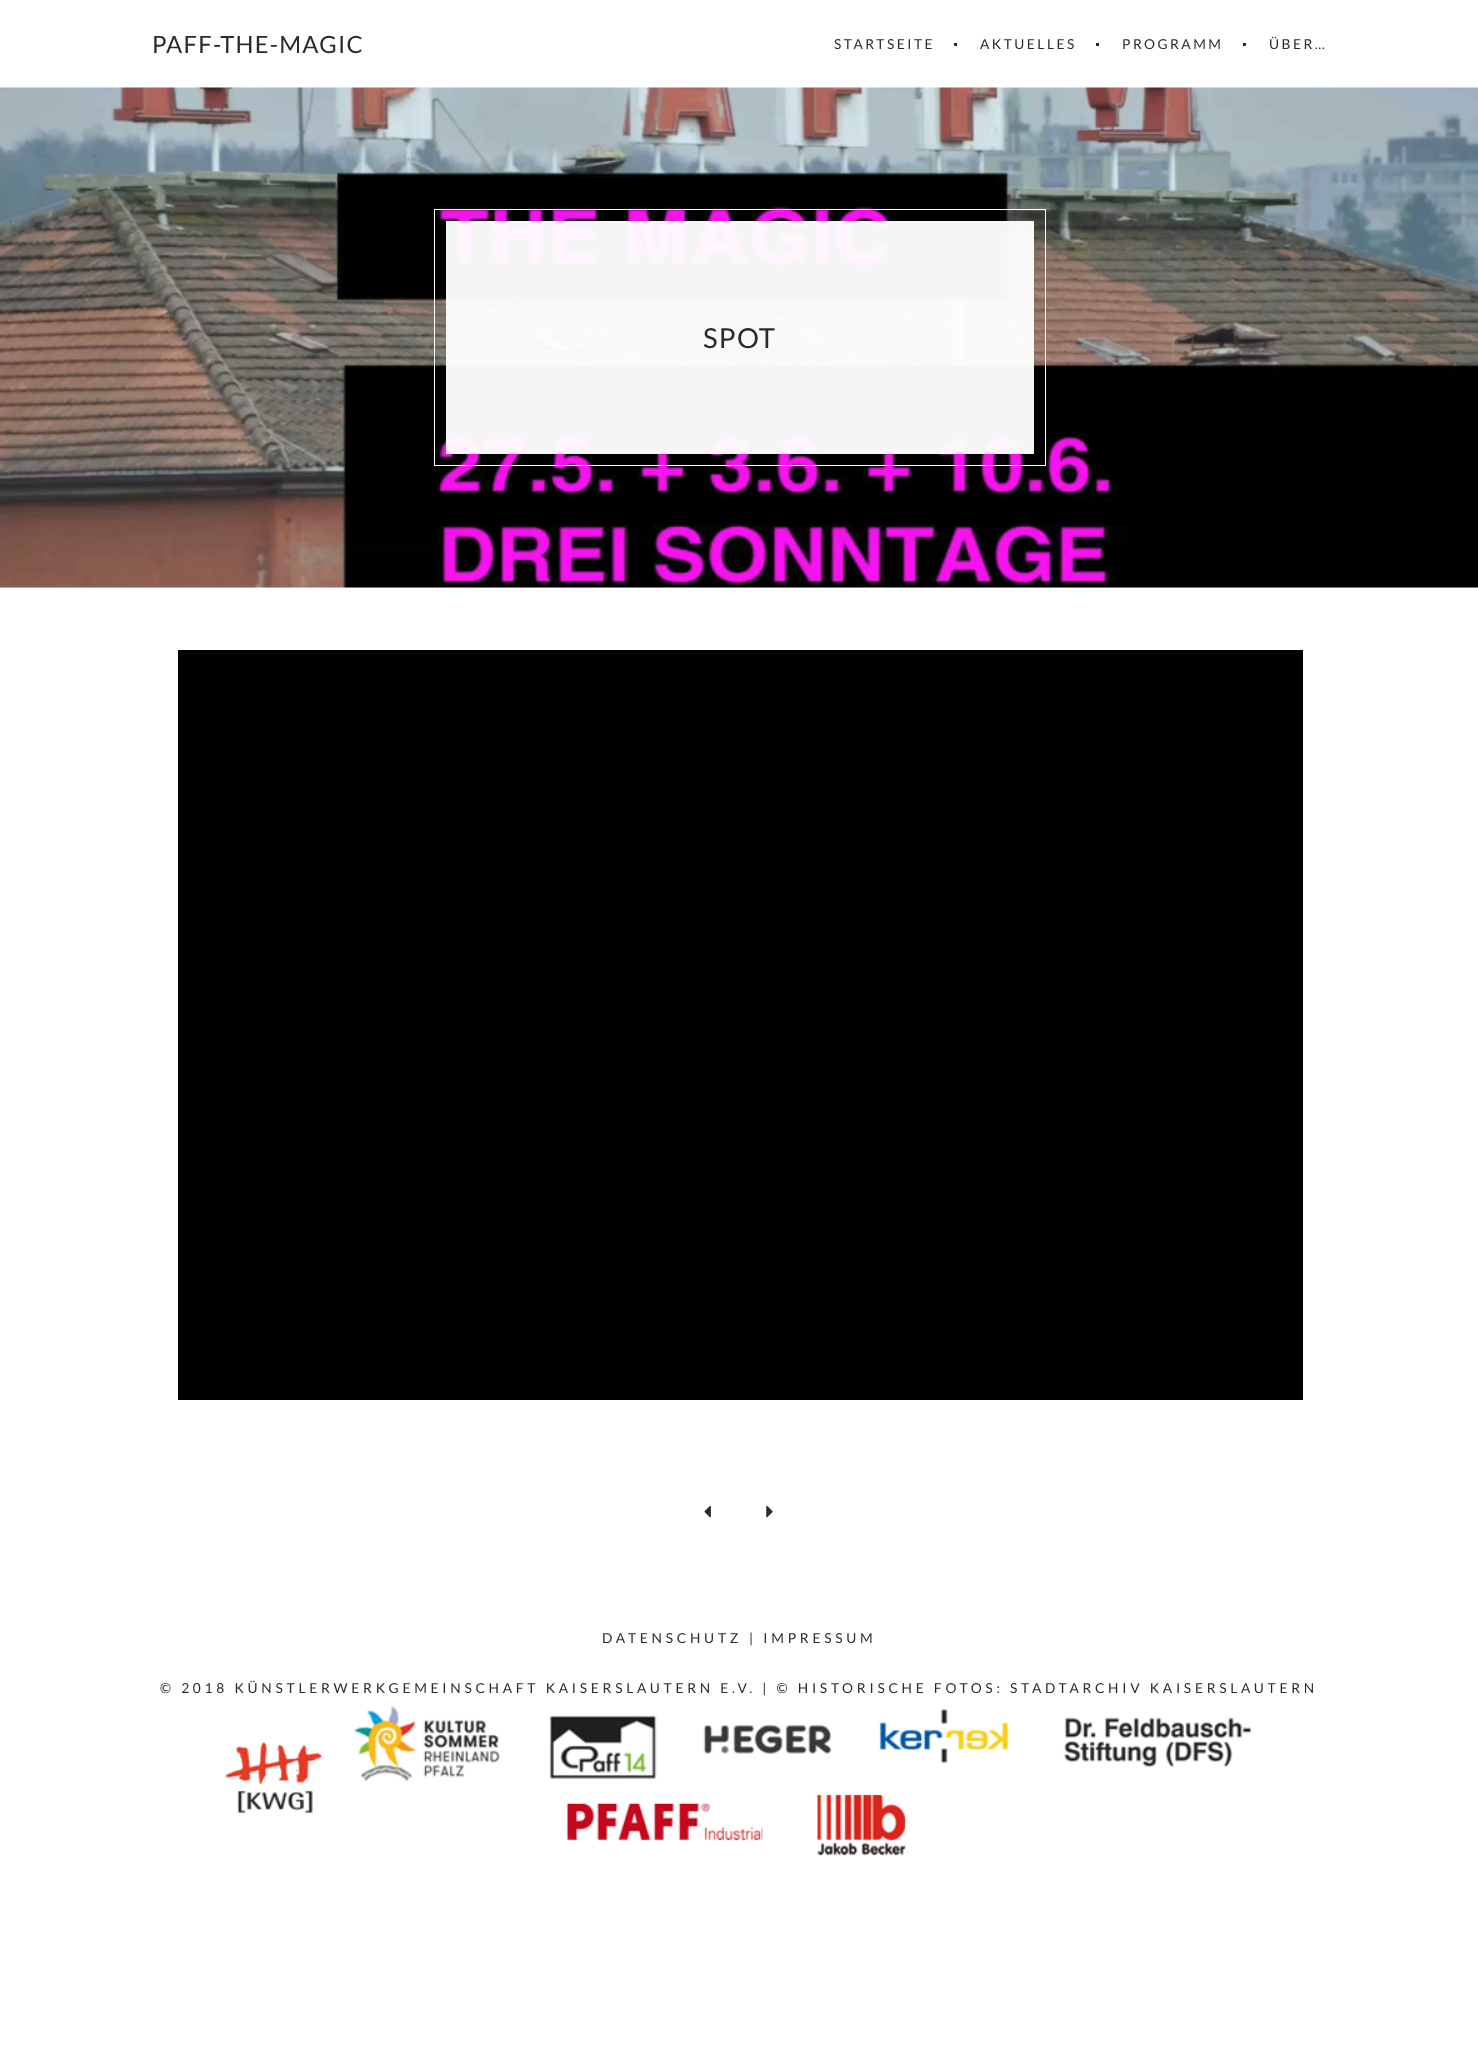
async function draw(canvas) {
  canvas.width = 1478;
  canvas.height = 2045;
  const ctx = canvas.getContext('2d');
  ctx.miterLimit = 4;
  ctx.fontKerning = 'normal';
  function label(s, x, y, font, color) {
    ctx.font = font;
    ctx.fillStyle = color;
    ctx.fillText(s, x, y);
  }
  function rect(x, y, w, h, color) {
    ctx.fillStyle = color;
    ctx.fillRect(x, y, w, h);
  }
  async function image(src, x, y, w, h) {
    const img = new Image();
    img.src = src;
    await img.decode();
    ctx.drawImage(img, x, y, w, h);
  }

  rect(0, 0, 1478, 2045, '#fff');
  ctx.letterSpacing = '1.25px';
  label('PAFF-THE-MAGIC', 152, 53, '23.75px Lato', '#272b2f');
  ctx.letterSpacing = '2.5px';
  label('STARTSEITE', 834, 49, '13.75px Lato', '#272b2f');
  rect(954, 43, 3, 3, '#272b2f');
  label('AKTUELLES', 980, 49, '13.75px Lato', '#272b2f');
  rect(1096, 43, 3, 3, '#272b2f');
  label('PROGRAMM', 1122, 49, '13.75px Lato', '#272b2f');
  rect(1243, 43, 3, 3, '#272b2f');
  label('ÜBER…', 1269, 49, '13.75px Lato', '#272b2f');
  rect(0, 587, 1478, 1, '#f5f5f5');
  await image('assets/img1.png', 0, 87, 1478, 501);
  rect(446, 221, 588, 233, '#fffffff5');
  ctx.strokeStyle = '#fff';
  ctx.strokeRect(434.5, 209.5, 611, 256);
  ctx.letterSpacing = '1.25px';
  label('SPOT', 703, 348, '27.5px Lato', '#272b2f');
  rect(178, 650, 1125, 750, '#000');
  await image('assets/img2.png', 704, 1505, 7, 13);
  await image('assets/img3.png', 766, 1506, 7, 12);
  ctx.letterSpacing = '3.75px';
  label('DATENSCHUTZ', 602, 1643, '13.75px Lato', '#272b2f');
  label('| IMPRESSUM', 749, 1643, '13.75px Lato', '#272b2f');
  label('© 2018 KÜNSTLERWERKGEMEINSCHAFT KAISERSLAUTERN E.V. | © HISTORISCHE FOTOS: STADTARCHIV KAISERSLAUTERN', 160, 1693, '13.75px Lato', '#272b2f');
  await image('assets/img4.png', 225, 1706, 1027, 150);
}

draw(document.querySelector('canvas'));
